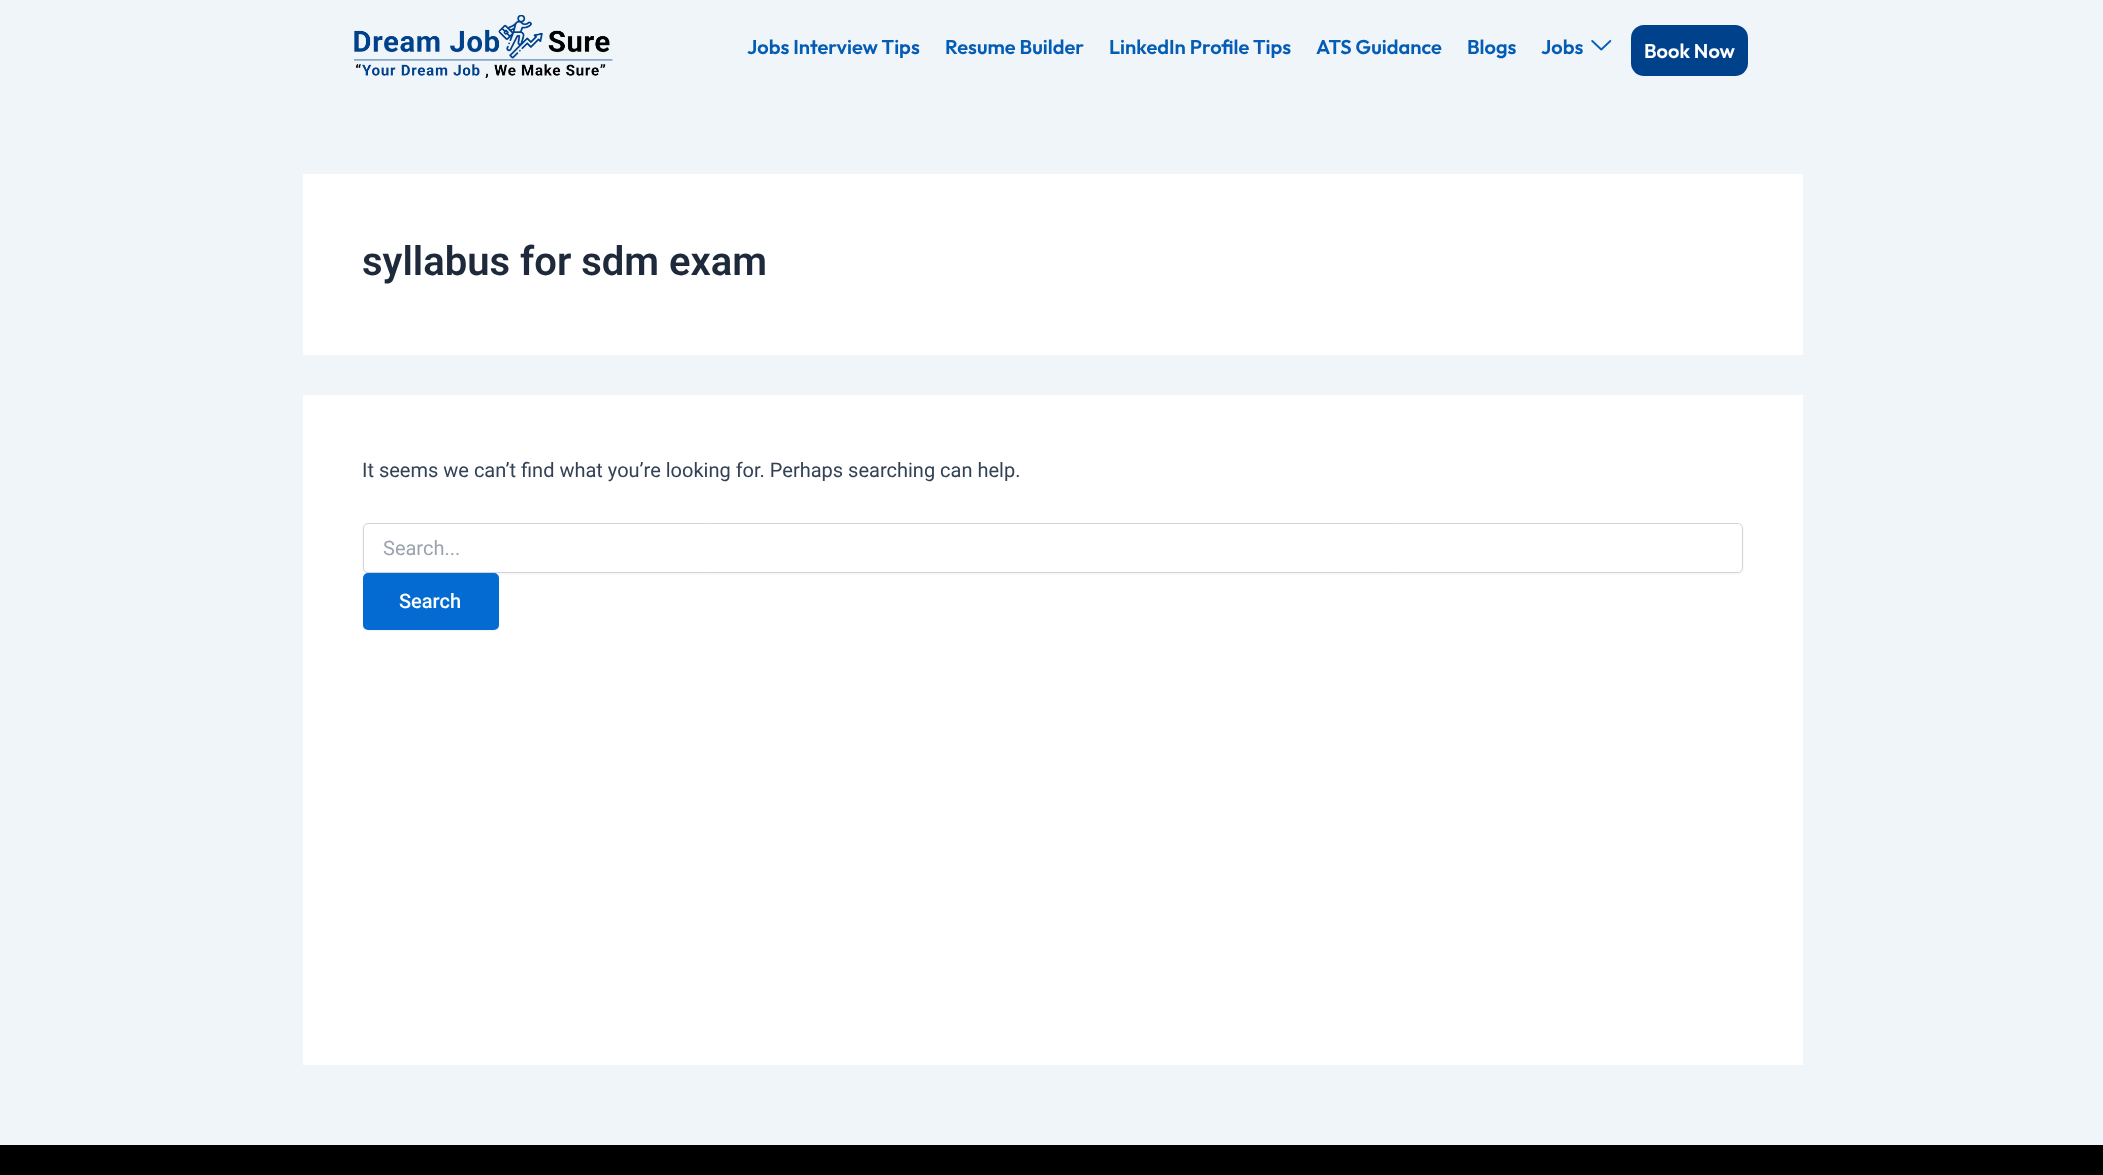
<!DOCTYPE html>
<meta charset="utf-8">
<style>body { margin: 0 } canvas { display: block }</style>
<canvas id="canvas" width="2103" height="1175"></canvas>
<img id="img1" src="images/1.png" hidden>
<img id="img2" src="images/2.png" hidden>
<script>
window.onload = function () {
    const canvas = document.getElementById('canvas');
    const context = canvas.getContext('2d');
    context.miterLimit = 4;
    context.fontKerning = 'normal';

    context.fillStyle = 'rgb(240, 245, 250)';
    context.fillRect(0, 0, 2103, 1175);
    context.drawImage(document.getElementById('img1'), 354, 15, 259, 63);
    context.drawImage(document.getElementById('img2'), 1591, 40, 21, 11);
    context.fillStyle = 'rgb(0, 65, 140)';
    context.beginPath();
    context.roundRect(1631, 25, 117, 51, 13);
    context.fill();
    context.fillStyle = 'rgb(255, 255, 255)';
    context.fillRect(303, 174, 1500, 181);
    context.fillRect(303, 395, 1500, 670);
    context.fillStyle = 'rgba(0, 0, 0, 0.05)';
    context.filter = 'blur(1px)';
    context.beginPath();
    context.roundRect(363, 524, 1380, 50, 5);
    context.fill();
    context.filter = 'none';
    context.fillStyle = 'rgb(255, 255, 255)';
    context.beginPath();
    context.roundRect(363.5, 523.5, 1379, 49, 4.5);
    context.fill();
    context.strokeStyle = 'rgb(209, 213, 219)';
    context.stroke();
    context.fillStyle = 'rgba(0, 0, 0, 0.05)';
    context.filter = 'blur(1px)';
    context.beginPath();
    context.roundRect(363, 574, 136, 57, 5);
    context.fill();
    context.filter = 'none';
    context.fillStyle = 'rgb(4, 107, 210)';
    context.beginPath();
    context.roundRect(363, 573, 136, 57, 5);
    context.fill();
    context.fillStyle = 'rgb(0, 0, 0)';
    context.fillRect(0, 1145, 2103, 30);
    context.font = '600 20px Outfit';
    context.fillStyle = 'rgb(4, 92, 180)';
    context.fillText('Jobs Interview Tips', 747, 54);
    context.fillText('Resume Builder', 945, 54);
    context.fillText('LinkedIn Profile Tips', 1109, 54);
    context.fillText('ATS Guidance', 1316, 54);
    context.fillText('Blogs', 1467, 54);
    context.fillText('Jobs', 1541, 54);
    context.fillStyle = 'rgb(255, 255, 255)';
    context.fillText('Book Now', 1644, 58);
    context.font = '600 40px Roboto';
    context.fillStyle = 'rgb(30, 41, 59)';
    context.fillText('syllabus for sdm exam', 362, 275);
    context.font = '20px Roboto';
    context.fillStyle = 'rgb(51, 65, 85)';
    context.fillText('It seems we can’t find what you’re looking for. Perhaps searching can help.', 362, 477);
    context.fillStyle = 'rgb(156, 163, 175)';
    context.fillText('Search...', 383, 555);
    context.font = '500 20px Roboto';
    context.fillStyle = 'rgb(255, 255, 255)';
    context.fillText('Search', 399, 608);
};
</script>
